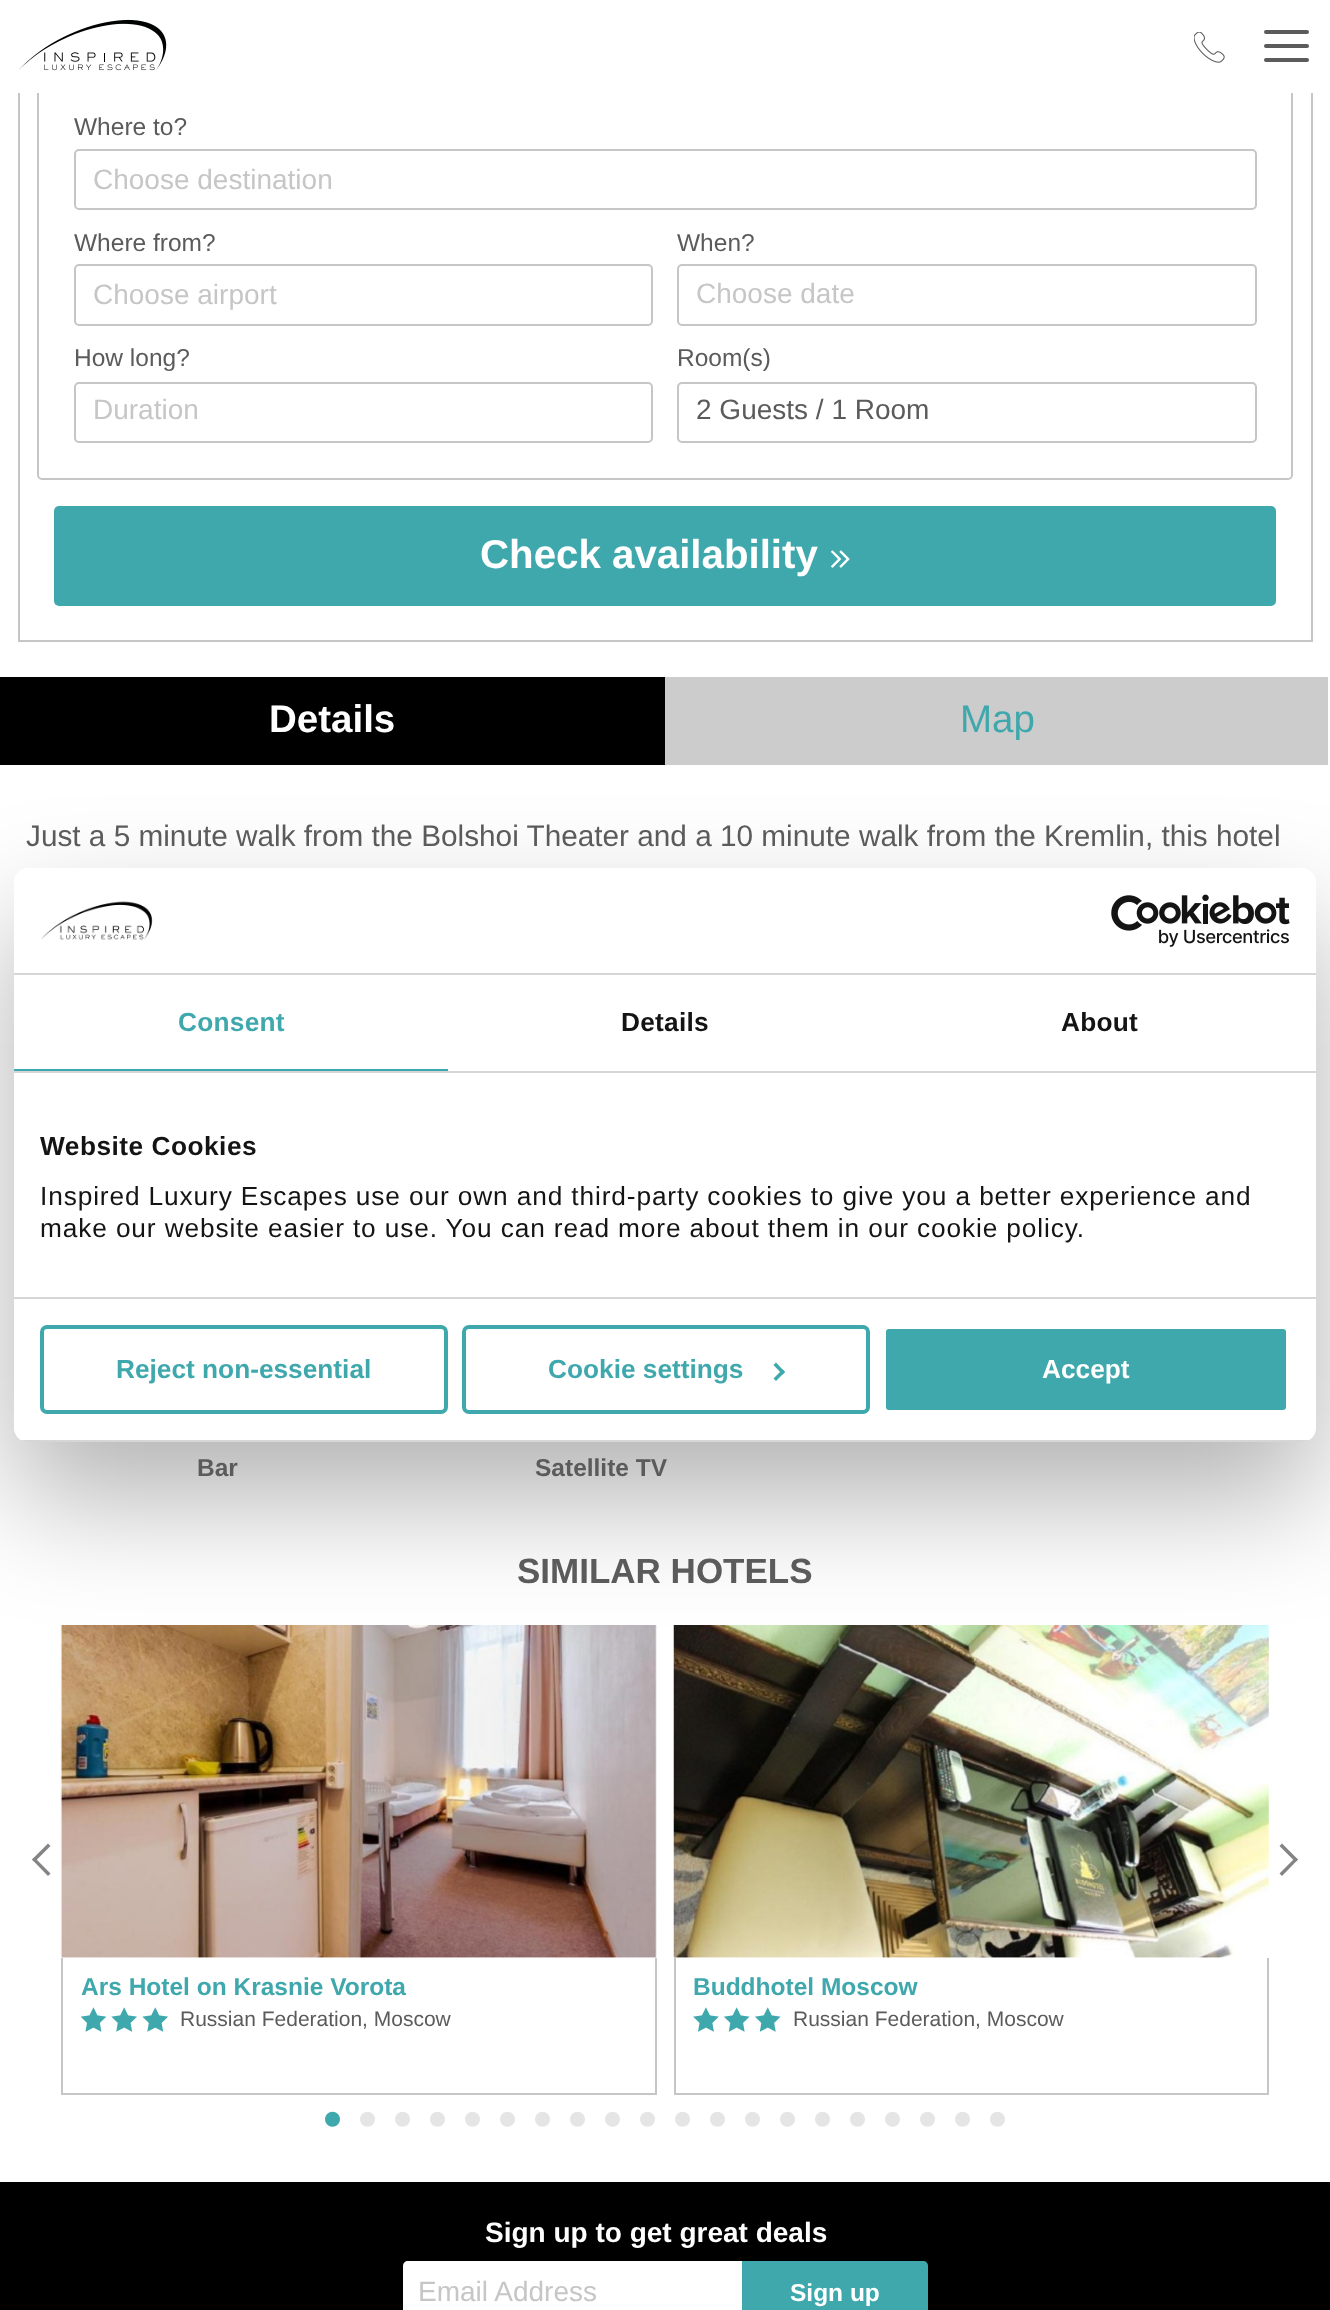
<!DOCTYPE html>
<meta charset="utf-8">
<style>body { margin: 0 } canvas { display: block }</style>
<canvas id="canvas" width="1330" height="2310"></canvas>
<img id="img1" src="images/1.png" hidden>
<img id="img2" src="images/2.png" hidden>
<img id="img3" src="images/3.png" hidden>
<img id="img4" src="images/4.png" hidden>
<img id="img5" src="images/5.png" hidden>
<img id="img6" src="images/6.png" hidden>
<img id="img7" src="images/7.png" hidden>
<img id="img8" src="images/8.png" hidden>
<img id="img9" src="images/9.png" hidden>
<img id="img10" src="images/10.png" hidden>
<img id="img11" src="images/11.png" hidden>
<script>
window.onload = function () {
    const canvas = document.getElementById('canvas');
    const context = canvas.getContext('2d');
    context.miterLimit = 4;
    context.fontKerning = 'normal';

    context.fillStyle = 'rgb(255, 255, 255)';
    context.fillRect(0, 0, 1330, 2310);
    context.strokeStyle = 'rgb(198, 198, 198)';
    context.lineWidth = 2;
    context.strokeRect(19, -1, 1293, 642);
    context.beginPath();
    context.roundRect(38, 85, 1254, 394, [0, 4, 4, 4]);
    context.stroke();
    context.fillRect(18, 0, 1295, 93);
    context.drawImage(document.getElementById('img1'), 19, 19, 148, 52);
    context.drawImage(document.getElementById('img2'), 1194, 32, 31, 31);
    context.fillStyle = 'rgb(91, 91, 91)';
    context.beginPath();
    context.roundRect(1264, 44, 45, 4, 2);
    context.fill();
    context.beginPath();
    context.roundRect(1264, 30, 45, 4, 2);
    context.fill();
    context.beginPath();
    context.roundRect(1264, 58, 45, 4, 2);
    context.fill();
    context.beginPath();
    context.roundRect(75, 150, 1181, 59, 4);
    context.stroke();
    context.beginPath();
    context.roundRect(75, 265, 577, 60, 4);
    context.stroke();
    context.beginPath();
    context.roundRect(678, 265, 578, 60, 4);
    context.stroke();
    context.beginPath();
    context.roundRect(75, 383, 577, 59, 4);
    context.stroke();
    context.beginPath();
    context.roundRect(678, 383, 578, 59, 4);
    context.stroke();
    context.fillStyle = 'rgb(63, 168, 173)';
    context.beginPath();
    context.roundRect(54, 506, 1222, 100, 5);
    context.fill();
    context.drawImage(document.getElementById('img3'), 831, 550, 19, 18);
    context.fillStyle = 'rgb(0, 0, 0)';
    context.fillRect(0, 677, 665, 88);
    context.fillStyle = 'rgb(204, 204, 204)';
    context.fillRect(665, 677, 663, 88);
    context.fillStyle = 'rgb(132, 132, 132)';
    context.beginPath();
    context.moveTo(48, 1876);
    context.lineTo(32, 1859.5);
    context.lineTo(34.5, 1857.5);
    context.lineTo(50.5, 1873.5);
    context.closePath();
    context.fill();
    context.beginPath();
    context.moveTo(34.5, 1862);
    context.lineTo(32, 1859.5);
    context.lineTo(48, 1843.5);
    context.lineTo(50.5, 1846);
    context.closePath();
    context.fill();
    context.beginPath();
    context.moveTo(1282, 1843.5);
    context.lineTo(1298, 1859.5);
    context.lineTo(1295.5, 1862);
    context.lineTo(1279.5, 1846);
    context.closePath();
    context.fill();
    context.beginPath();
    context.moveTo(1295.5, 1857.5);
    context.lineTo(1298, 1859.5);
    context.lineTo(1282, 1876);
    context.lineTo(1279.5, 1873.5);
    context.closePath();
    context.fill();
    context.drawImage(document.getElementById('img4'), 60, 1625, 597, 333);
    context.fillStyle = 'rgb(198, 198, 198)';
    context.fillRect(655, 1958, 2, 137);
    context.fillRect(61, 2093, 595, 2);
    context.fillRect(61, 1958, 2, 137);
    context.drawImage(document.getElementById('img5'), 81, 2007, 87, 25);
    context.drawImage(document.getElementById('img6'), 673, 1625, 596, 333);
    context.fillRect(1267, 1958, 2, 137);
    context.fillRect(674, 2093, 595, 2);
    context.fillRect(674, 1958, 2, 137);
    context.drawImage(document.getElementById('img7'), 693, 2007, 88, 25);
    context.drawImage(document.getElementById('img8'), 325, 2111, 15, 16);
    context.drawImage(document.getElementById('img9'), 360, 2111, 15, 16);
    context.drawImage(document.getElementById('img9'), 395, 2111, 15, 16);
    context.drawImage(document.getElementById('img9'), 430, 2111, 15, 16);
    context.drawImage(document.getElementById('img9'), 465, 2111, 15, 16);
    context.drawImage(document.getElementById('img9'), 500, 2111, 15, 16);
    context.drawImage(document.getElementById('img9'), 535, 2111, 15, 16);
    context.drawImage(document.getElementById('img9'), 570, 2111, 15, 16);
    context.drawImage(document.getElementById('img9'), 605, 2111, 15, 16);
    context.drawImage(document.getElementById('img9'), 640, 2111, 15, 16);
    context.drawImage(document.getElementById('img9'), 675, 2111, 15, 16);
    context.drawImage(document.getElementById('img9'), 710, 2111, 15, 16);
    context.drawImage(document.getElementById('img9'), 745, 2111, 15, 16);
    context.drawImage(document.getElementById('img9'), 780, 2111, 15, 16);
    context.drawImage(document.getElementById('img9'), 815, 2111, 15, 16);
    context.drawImage(document.getElementById('img9'), 850, 2111, 15, 16);
    context.drawImage(document.getElementById('img9'), 885, 2111, 15, 16);
    context.drawImage(document.getElementById('img9'), 920, 2111, 15, 16);
    context.drawImage(document.getElementById('img9'), 955, 2111, 15, 16);
    context.drawImage(document.getElementById('img9'), 990, 2111, 15, 16);
    context.fillStyle = 'rgb(0, 0, 0)';
    context.fillRect(0, 2182, 1330, 128);
    context.fillStyle = 'rgb(255, 255, 255)';
    context.beginPath();
    context.moveTo(408, 2261);
    context.lineTo(742, 2261);
    context.lineTo(742, 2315);
    context.lineTo(408, 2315);
    context.bezierCurveTo(405, 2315, 403, 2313, 403, 2310);
    context.lineTo(403, 2266);
    context.bezierCurveTo(403, 2263, 405, 2261, 408, 2261);
    context.closePath();
    context.fill();
    context.fillStyle = 'rgb(63, 168, 173)';
    context.beginPath();
    context.moveTo(742, 2261);
    context.lineTo(923, 2261);
    context.bezierCurveTo(926, 2261, 928, 2263, 928, 2266);
    context.lineTo(928, 2310);
    context.bezierCurveTo(928, 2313, 926, 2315, 923, 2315);
    context.lineTo(742, 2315);
    context.closePath();
    context.fill();
    context.fillStyle = 'rgba(0, 0, 0, 0.3)';
    context.filter = 'blur(59.5px)';
    context.beginPath();
    context.roundRect(14, 924, 1302, 574, 14);
    context.fill();
    context.filter = 'none';
    context.fillStyle = 'rgb(255, 255, 255)';
    context.beginPath();
    context.roundRect(14, 868, 1302, 574, 14);
    context.fill();
    context.fillStyle = 'rgb(214, 214, 214)';
    context.fillRect(14, 973, 1302, 2);
    context.drawImage(document.getElementById('img10'), 41, 901, 112, 39);
    context.drawImage(document.getElementById('img11'), 1111, 894, 179, 53);
    context.fillRect(14, 1071, 1302, 2);
    context.fillStyle = 'rgb(63, 168, 173)';
    context.fillRect(14, 1069, 434, 2);
    context.fillStyle = 'rgb(214, 214, 214)';
    context.fillRect(14, 1297, 1302, 2);
    context.save();
    context.beginPath();
    context.roundRect(14, 868, 1302, 574, 14);
    context.clip();
    context.fillRect(14, 1440, 1302, 2);
    context.restore();
    context.beginPath();
    context.roundRect(42, 1327, 404, 85, 5);
    context.strokeStyle = 'rgb(63, 168, 173)';
    context.lineWidth = 4;
    context.stroke();
    context.beginPath();
    context.roundRect(464, 1327, 404, 85, 5);
    context.stroke();
    context.fillStyle = 'rgb(63, 168, 173)';
    context.beginPath();
    context.moveTo(776, 1362.5);
    context.lineTo(785, 1372);
    context.lineTo(782.5, 1374.5);
    context.lineTo(773.5, 1365);
    context.closePath();
    context.fill();
    context.beginPath();
    context.moveTo(782.5, 1369.5);
    context.lineTo(785, 1372);
    context.lineTo(776, 1381);
    context.lineTo(773.5, 1378.5);
    context.closePath();
    context.fill();
    context.beginPath();
    context.roundRect(884, 1327, 404, 85, 5);
    context.fill();
    context.strokeStyle = 'rgb(255, 255, 255)';
    context.stroke();
    context.font = '24.5px Liberation Sans';
    context.fillStyle = 'rgb(91, 91, 91)';
    context.fillText('Where to?', 74, 135);
    context.font = '28px Liberation Sans';
    context.fillStyle = 'rgb(198, 198, 198)';
    context.fillText('Choose destination', 93, 189);
    context.font = '24.5px Liberation Sans';
    context.fillStyle = 'rgb(91, 91, 91)';
    context.fillText('Where from?', 74, 251);
    context.font = '28px Liberation Sans';
    context.fillStyle = 'rgb(198, 198, 198)';
    context.fillText('Choose airport', 93, 304);
    context.font = '24.5px Liberation Sans';
    context.fillStyle = 'rgb(91, 91, 91)';
    context.fillText('When?', 677, 251);
    context.font = '28px Liberation Sans';
    context.fillStyle = 'rgb(198, 198, 198)';
    context.fillText('Choose date', 696, 303);
    context.font = '24.5px Liberation Sans';
    context.fillStyle = 'rgb(91, 91, 91)';
    context.fillText('How long?', 74, 366);
    context.font = '28px Liberation Sans';
    context.fillStyle = 'rgb(198, 198, 198)';
    context.fillText('Duration', 93, 419);
    context.font = '24.5px Liberation Sans';
    context.fillStyle = 'rgb(91, 91, 91)';
    context.fillText('Room(s)', 677, 366);
    context.font = '28px Liberation Sans';
    context.fillText('2 Guests / 1 Room', 696, 419);
    context.font = 'bold 40.25px Liberation Sans';
    context.fillStyle = 'rgb(255, 255, 255)';
    context.fillText('Check availability', 480, 568);
    context.font = 'bold 38.5px Liberation Sans';
    context.fillText('Details', 269, 732);
    context.font = '38.5px Liberation Sans';
    context.fillStyle = 'rgb(63, 168, 173)';
    context.fillText('Map', 960, 732);
    context.font = '29.75px Liberation Sans';
    context.fillStyle = 'rgb(91, 91, 91)';
    context.fillText('Just a 5 minute walk from the Bolshoi Theater and a 10 minute walk from the Kremlin, this hotel', 26, 846);
    context.font = 'bold 24.5px Liberation Sans';
    context.fillText('Bar', 197, 1476);
    context.fillText('Satellite TV', 535, 1476);
    context.font = 'bold 35px Liberation Sans';
    context.fillText('SIMILAR HOTELS', 517, 1583);
    context.font = 'bold 24.5px Liberation Sans';
    context.fillStyle = 'rgb(63, 168, 173)';
    context.fillText('Ars Hotel on Krasnie Vorota', 81, 1995);
    context.font = '21px Liberation Sans';
    context.fillStyle = 'rgb(91, 91, 91)';
    context.fillText('Russian Federation, Moscow', 180, 2026);
    context.font = 'bold 24.5px Liberation Sans';
    context.fillStyle = 'rgb(63, 168, 173)';
    context.fillText('Buddhotel Moscow', 693, 1995);
    context.font = '21px Liberation Sans';
    context.fillStyle = 'rgb(91, 91, 91)';
    context.fillText('Russian Federation, Moscow', 793, 2026);
    context.font = 'bold 28px Liberation Sans';
    context.fillStyle = 'rgb(255, 255, 255)';
    context.fillText('Sign up to get great deals', 485, 2242);
    context.font = '28px Liberation Sans';
    context.fillStyle = 'rgb(198, 198, 198)';
    context.fillText('Email Address', 418, 2301);
    context.font = 'bold 24.5px Liberation Sans';
    context.fillStyle = 'rgb(255, 255, 255)';
    context.fillText('Sign up', 790, 2301);
    context.letterSpacing = '0.25px';
    context.font = 'bold 26.25px Liberation Sans';
    context.fillStyle = 'rgb(63, 168, 173)';
    context.fillText('Consent', 178, 1031);
    context.fillStyle = 'rgb(20, 20, 20)';
    context.fillText('Details', 621, 1031);
    context.fillText('About', 1061, 1031);
    context.letterSpacing = '0.5px';
    context.fillText('Website Cookies', 40, 1155);
    context.letterSpacing = '0.88px';
    context.font = '26.25px Liberation Sans';
    context.fillText('Inspired Luxury Escapes use our own and third-party cookies to give you a better experience and', 40, 1205);
    context.fillText('make our website easier to use. You can read more about them in our cookie policy.', 40, 1237);
    context.letterSpacing = '0px';
    context.font = 'bold 26.25px Liberation Sans';
    context.fillStyle = 'rgb(63, 168, 173)';
    context.fillText('Reject non-essential', 116, 1378);
    context.fillText('Cookie settings', 548, 1378);
    context.fillStyle = 'rgb(255, 255, 255)';
    context.fillText('Accept', 1042, 1378);
};
</script>
